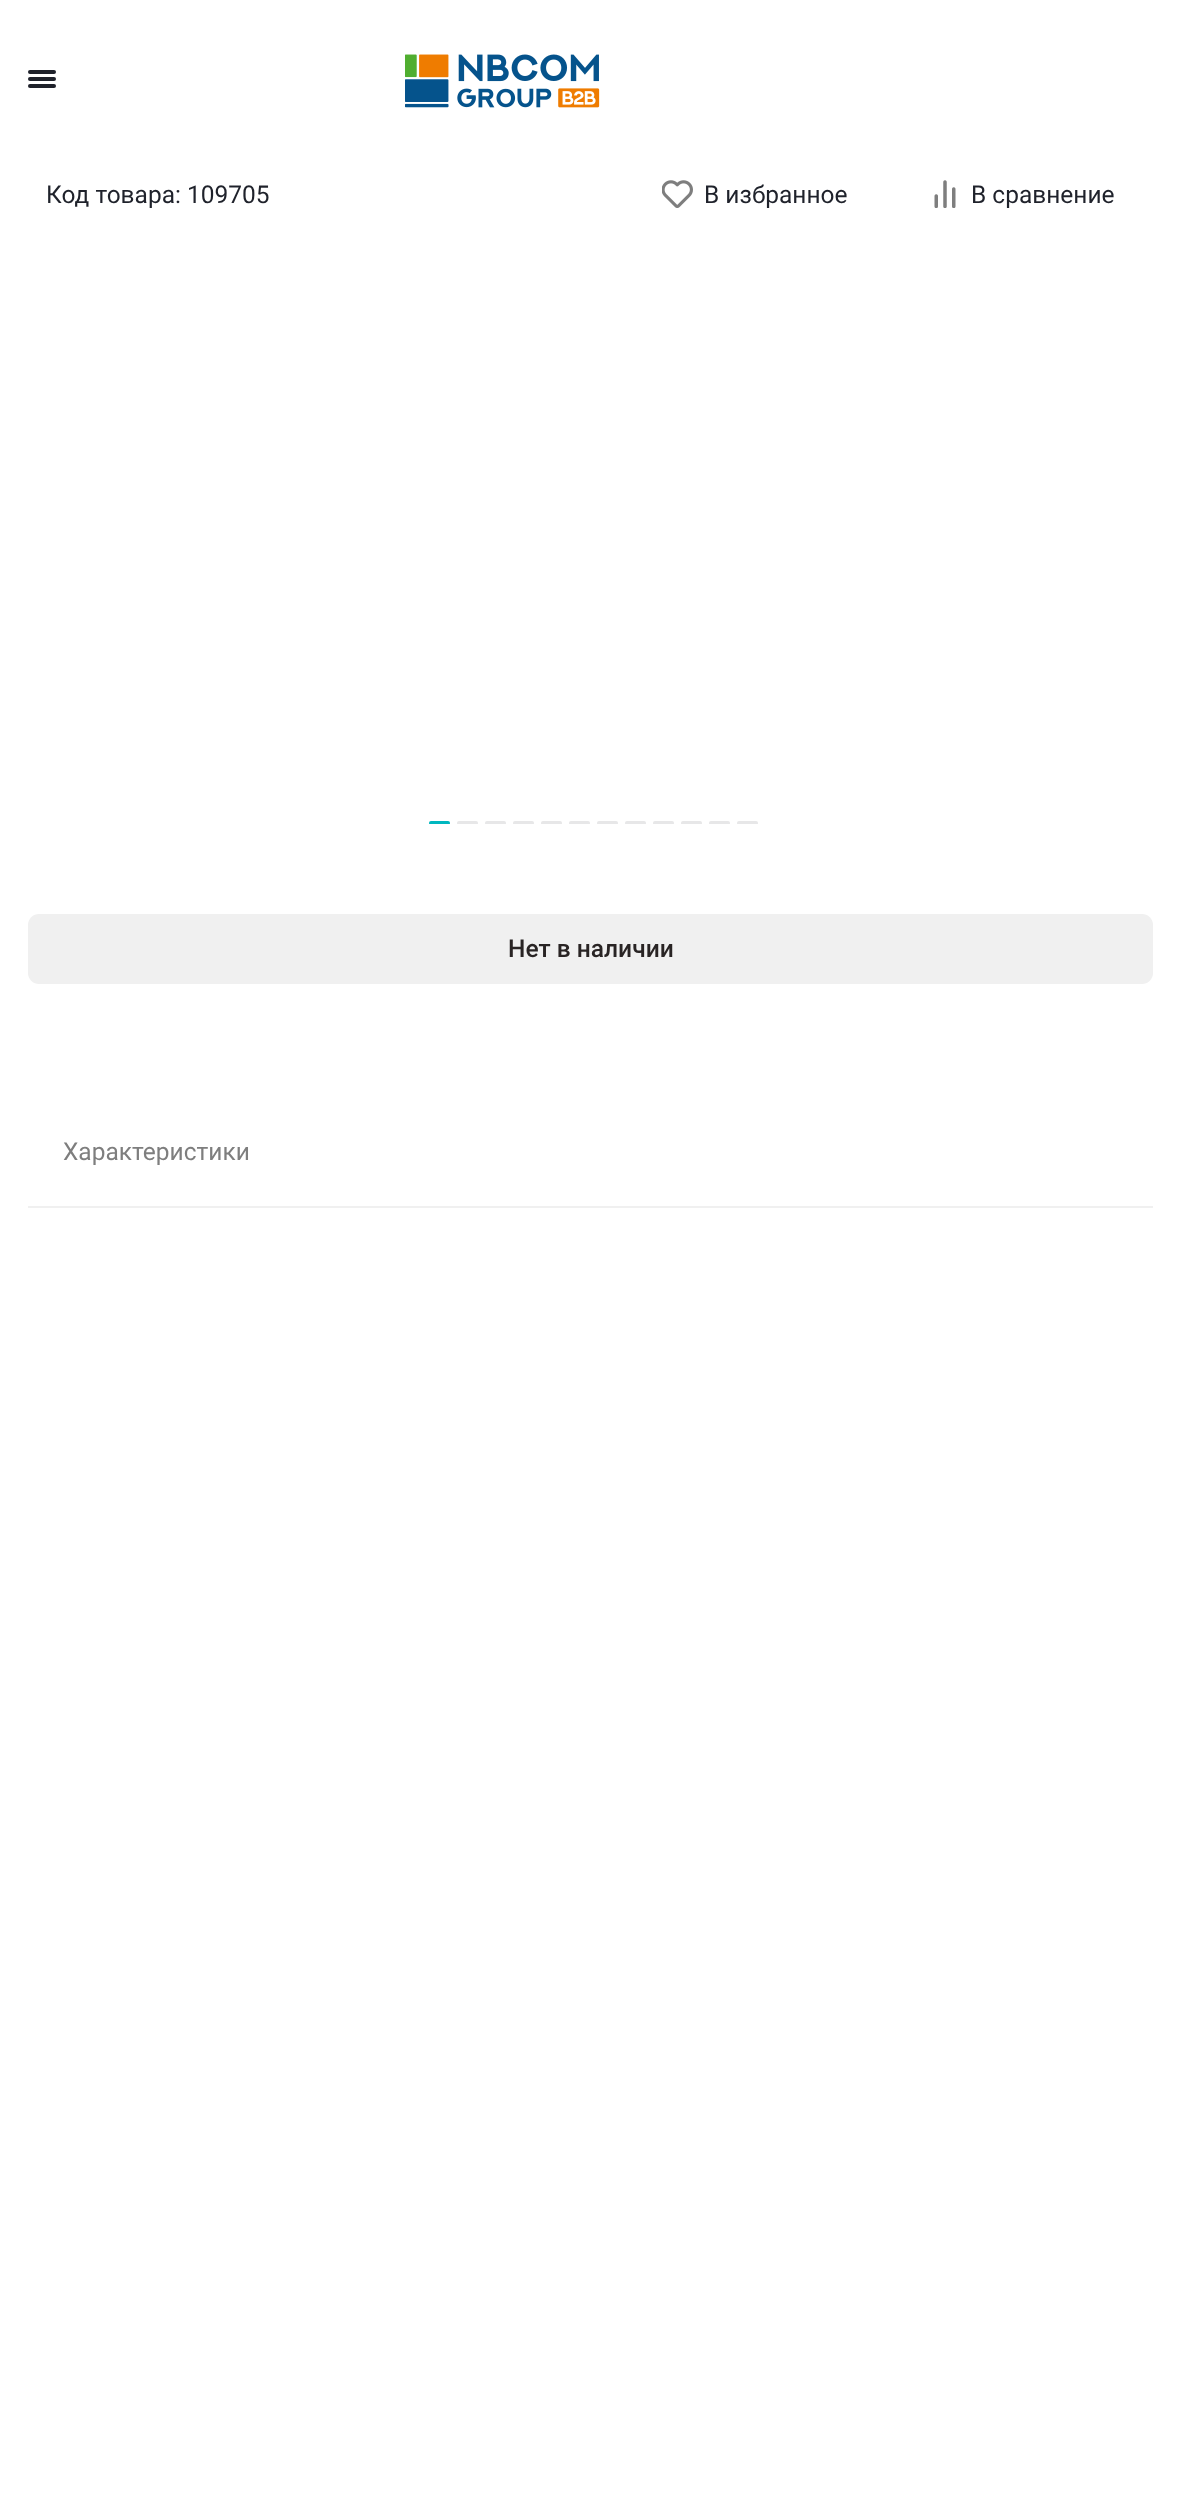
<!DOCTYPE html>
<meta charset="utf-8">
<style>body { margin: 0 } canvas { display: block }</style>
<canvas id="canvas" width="1180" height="2495"></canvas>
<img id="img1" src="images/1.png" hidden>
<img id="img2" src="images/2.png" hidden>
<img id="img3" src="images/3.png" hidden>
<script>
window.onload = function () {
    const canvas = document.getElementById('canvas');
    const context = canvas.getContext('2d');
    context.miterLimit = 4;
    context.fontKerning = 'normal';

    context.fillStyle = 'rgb(255, 255, 255)';
    context.fillRect(0, 0, 1180, 2495);
    context.fillStyle = 'rgb(31, 34, 43)';
    context.beginPath();
    context.roundRect(28, 77, 28, 4, 2);
    context.fill();
    context.beginPath();
    context.roundRect(28, 70, 28, 4, 2);
    context.fill();
    context.beginPath();
    context.roundRect(28, 84, 28, 4, 2);
    context.fill();
    context.drawImage(document.getElementById('img1'), 405, 54, 195, 54);
    context.drawImage(document.getElementById('img2'), 662, 180, 31, 28);
    context.drawImage(document.getElementById('img3'), 934, 180, 22, 28);
    context.save();
    context.beginPath();
    context.rect(32, 252, 1121, 572);
    context.clip();
    context.fillStyle = 'rgb(0, 183, 191)';
    context.beginPath();
    context.roundRect(429, 821, 21, 4, 2);
    context.fill();
    context.fillStyle = 'rgb(231, 231, 232)';
    context.beginPath();
    context.roundRect(457, 821, 21, 4, 2);
    context.fill();
    context.beginPath();
    context.roundRect(485, 821, 21, 4, 2);
    context.fill();
    context.beginPath();
    context.roundRect(513, 821, 21, 4, 2);
    context.fill();
    context.beginPath();
    context.roundRect(541, 821, 21, 4, 2);
    context.fill();
    context.beginPath();
    context.roundRect(569, 821, 21, 4, 2);
    context.fill();
    context.beginPath();
    context.roundRect(597, 821, 21, 4, 2);
    context.fill();
    context.beginPath();
    context.roundRect(625, 821, 21, 4, 2);
    context.fill();
    context.beginPath();
    context.roundRect(653, 821, 21, 4, 2);
    context.fill();
    context.beginPath();
    context.roundRect(681, 821, 21, 4, 2);
    context.fill();
    context.beginPath();
    context.roundRect(709, 821, 21, 4, 2);
    context.fill();
    context.beginPath();
    context.roundRect(737, 821, 21, 4, 2);
    context.fill();
    context.restore();
    context.fillStyle = 'rgb(240, 240, 240)';
    context.beginPath();
    context.roundRect(28, 914, 1125, 70, 11);
    context.fill();
    context.fillRect(28, 1206, 1125, 2);
    context.font = '24.5px Roboto';
    context.fillStyle = 'rgb(31, 34, 43)';
    context.fillText('Код товара: 109705', 46, 203);
    context.fillText('В избранное', 704, 203);
    context.fillText('В сравнение', 971, 203);
    context.font = '500 24.5px Roboto';
    context.fillStyle = 'rgb(41, 36, 36)';
    context.fillText('Нет в наличии', 508, 957);
    context.font = '24.5px Roboto';
    context.fillStyle = 'rgb(126, 126, 126)';
    context.fillText('Характеристики', 63, 1160);
};
</script>
